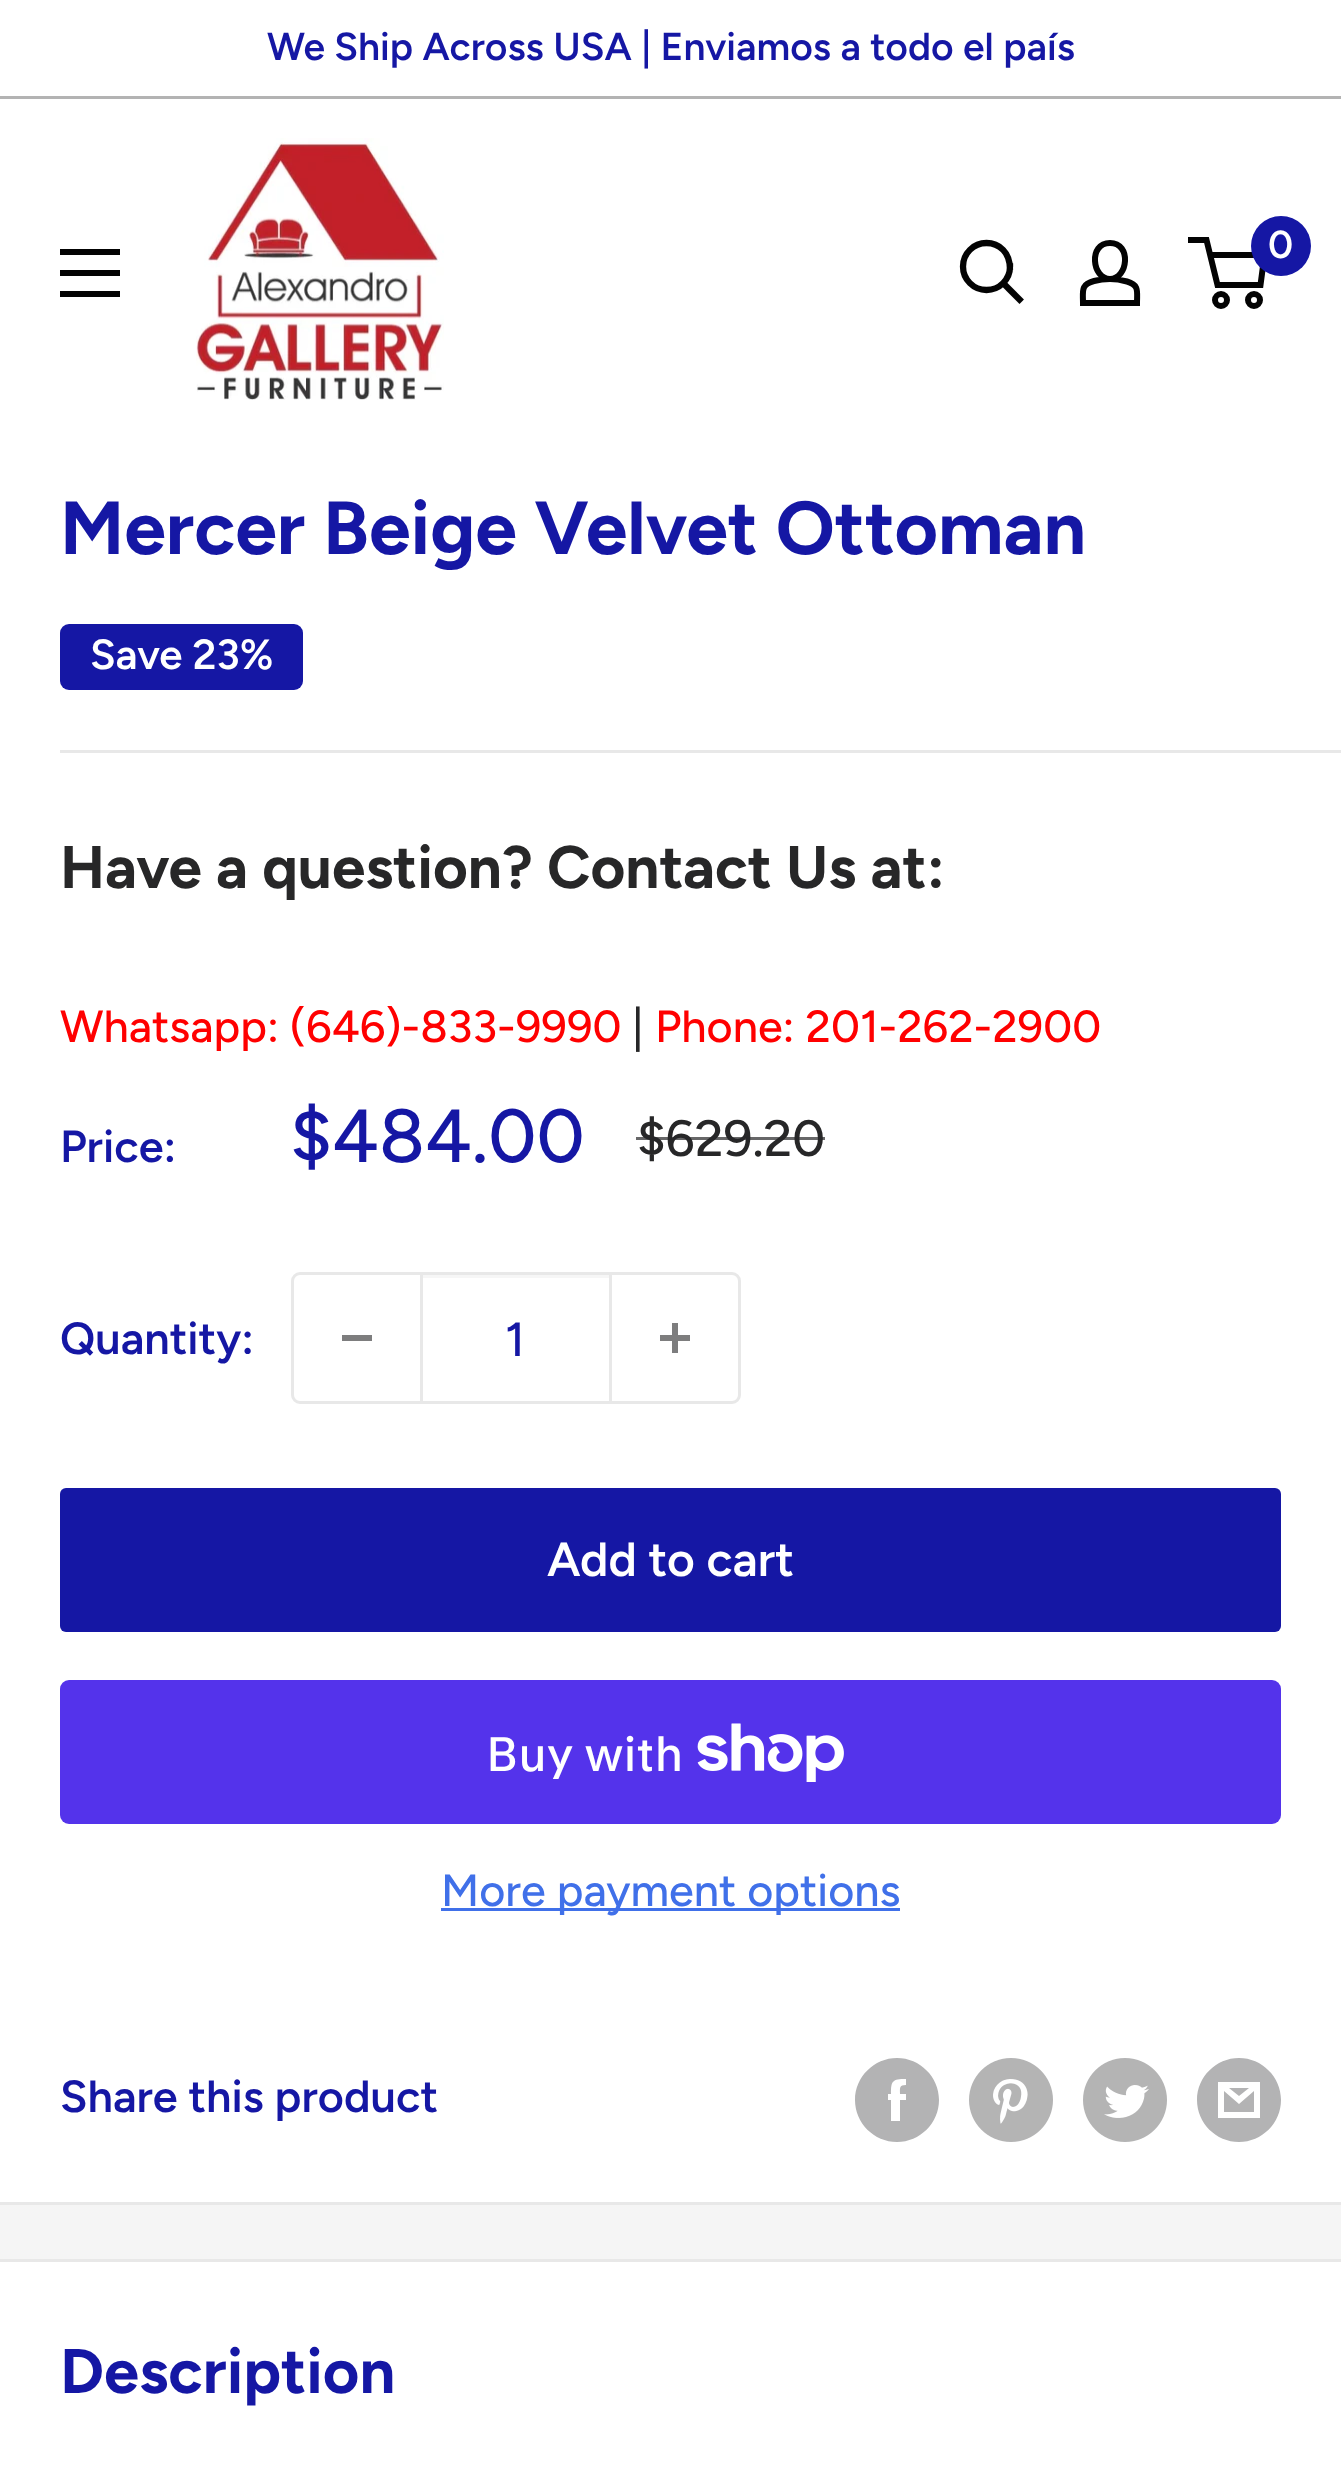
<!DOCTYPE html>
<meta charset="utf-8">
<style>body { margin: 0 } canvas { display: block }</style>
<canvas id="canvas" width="1341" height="2485"></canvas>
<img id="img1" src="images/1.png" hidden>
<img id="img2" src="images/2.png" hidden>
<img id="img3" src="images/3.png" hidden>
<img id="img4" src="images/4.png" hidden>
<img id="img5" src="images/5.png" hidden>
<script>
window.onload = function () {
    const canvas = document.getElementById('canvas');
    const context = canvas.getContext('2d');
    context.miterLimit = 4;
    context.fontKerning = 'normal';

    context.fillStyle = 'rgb(245, 245, 245)';
    context.fillRect(0, 0, 1341, 2485);
    context.fillStyle = 'rgb(255, 255, 255)';
    context.fillRect(0, 0, 1341, 96);
    context.fillStyle = 'rgb(179, 179, 179)';
    context.fillRect(0, 96, 1341, 3);
    context.fillStyle = 'rgb(255, 255, 255)';
    context.fillRect(0, 99, 1341, 2103);
    context.drawImage(document.getElementById('img1'), 196, 138, 248, 262);
    context.beginPath();
    context.moveTo(1019.5, 299.5);
    context.lineTo(1004, 284);
    context.strokeStyle = 'rgb(3, 3, 3)';
    context.lineWidth = 6.3;
    context.lineCap = 'square';
    context.stroke();
    context.beginPath();
    context.arc(986.5, 266.5, 23.5, 0, 2 * Math.PI);
    context.stroke();
    context.beginPath();
    context.moveTo(1110, 279);
    context.bezierCurveTo(1115.5, 279, 1121.5, 280, 1127, 281.5);
    context.bezierCurveTo(1139.5, 285, 1137, 291.5, 1137, 303);
    context.lineTo(1083, 303);
    context.bezierCurveTo(1083, 291, 1080.5, 284.5, 1094, 281);
    context.bezierCurveTo(1099.5, 279.5, 1104.5, 279, 1110, 279);
    context.closePath();
    context.moveTo(1110, 279);
    context.bezierCurveTo(1092, 279, 1088, 243, 1110, 243);
    context.bezierCurveTo(1132, 243, 1128, 279, 1110, 279);
    context.closePath();
    context.lineWidth = 6;
    context.lineCap = 'butt';
    context.stroke();
    context.beginPath();
    context.arc(1221, 300, 6, 0, 2 * Math.PI);
    context.stroke();
    context.beginPath();
    context.arc(1254, 300, 6, 0, 2 * Math.PI);
    context.stroke();
    context.beginPath();
    context.moveTo(1210, 255);
    context.lineTo(1264.5, 255);
    context.lineTo(1260.5, 285);
    context.lineTo(1217.5, 285);
    context.lineTo(1206.5, 240);
    context.lineTo(1188, 240);
    context.stroke();
    context.fillStyle = 'rgb(21, 23, 164)';
    context.beginPath();
    context.arc(1281, 246, 30, 0, 2 * Math.PI);
    context.fill();
    context.fillStyle = 'rgb(3, 3, 3)';
    context.beginPath();
    context.moveTo(60, 291);
    context.lineTo(120, 291);
    context.lineTo(120, 297);
    context.lineTo(60, 297);
    context.closePath();
    context.moveTo(60, 249);
    context.lineTo(120, 249);
    context.lineTo(120, 255);
    context.lineTo(60, 255);
    context.closePath();
    context.moveTo(60, 270);
    context.lineTo(120, 270);
    context.lineTo(120, 276);
    context.lineTo(60, 276);
    context.closePath();
    context.fill('evenodd');
    context.fillStyle = 'rgb(232, 232, 232)';
    context.fillRect(0, 2202, 1341, 3);
    context.fillStyle = 'rgb(21, 23, 164)';
    context.beginPath();
    context.roundRect(60, 624, 243, 66, 9);
    context.fill();
    context.fillStyle = 'rgb(232, 232, 232)';
    context.fillRect(60, 750, 1281, 3);
    context.beginPath();
    context.roundRect(292.5, 1273.5, 447, 129, 7.5);
    context.strokeStyle = 'rgb(232, 232, 232)';
    context.lineWidth = 3;
    context.stroke();
    context.fillStyle = 'rgb(125, 125, 126)';
    context.fillRect(342, 1335, 30, 6);
    context.fillStyle = 'rgb(246, 246, 246)';
    context.fillRect(423, 1275, 186, 3);
    context.fillStyle = 'rgb(232, 232, 232)';
    context.fillRect(609, 1275, 3, 126);
    context.fillRect(420, 1275, 3, 126);
    context.drawImage(document.getElementById('img2'), 660, 1323, 30, 30);
    context.fillStyle = 'rgb(21, 23, 164)';
    context.beginPath();
    context.roundRect(60, 1488, 1221, 144, 6);
    context.fill();
    context.fillStyle = 'rgb(84, 51, 235)';
    context.beginPath();
    context.roundRect(60, 1680, 1221, 144, 9);
    context.fill();
    context.drawImage(document.getElementById('img3'), 697, 1723, 147, 59);
    context.fillStyle = 'rgb(64, 112, 233)';
    context.fillRect(441, 1908, 459, 3);
    context.fillStyle = 'rgb(179, 179, 180)';
    context.beginPath();
    context.moveTo(897, 2142);
    context.bezierCurveTo(874, 2142, 855, 2123, 855, 2100);
    context.bezierCurveTo(855, 2077, 874, 2058, 897, 2058);
    context.bezierCurveTo(920, 2058, 939, 2077, 939, 2100);
    context.bezierCurveTo(939, 2123, 920, 2142, 897, 2142);
    context.closePath();
    context.moveTo(906, 2094);
    context.lineTo(900, 2094);
    context.bezierCurveTo(900, 2088, 899, 2085, 906, 2085);
    context.lineTo(906, 2079);
    context.bezierCurveTo(892, 2079, 891, 2081, 891, 2094);
    context.lineTo(888, 2094);
    context.lineTo(888, 2100);
    context.lineTo(891, 2100);
    context.lineTo(891, 2121);
    context.lineTo(900, 2121);
    context.lineTo(900, 2100);
    context.lineTo(906, 2100);
    context.closePath();
    context.fill('evenodd');
    context.drawImage(document.getElementById('img4'), 969, 2058, 84, 84);
    context.drawImage(document.getElementById('img5'), 1083, 2058, 84, 84);
    context.beginPath();
    context.moveTo(1239, 2142);
    context.bezierCurveTo(1216, 2142, 1197, 2123, 1197, 2100);
    context.bezierCurveTo(1197, 2077, 1216, 2058, 1239, 2058);
    context.bezierCurveTo(1262, 2058, 1281, 2077, 1281, 2100);
    context.bezierCurveTo(1281, 2123, 1262, 2142, 1239, 2142);
    context.closePath();
    context.moveTo(1229, 2088);
    context.lineTo(1249, 2088);
    context.lineTo(1239, 2096);
    context.closePath();
    context.moveTo(1254, 2091);
    context.lineTo(1254, 2112);
    context.lineTo(1224, 2112);
    context.lineTo(1224, 2091);
    context.lineTo(1239, 2104);
    context.closePath();
    context.moveTo(1260, 2082);
    context.lineTo(1218, 2082);
    context.lineTo(1218, 2118);
    context.lineTo(1260, 2118);
    context.closePath();
    context.fill();
    context.fillStyle = 'rgb(255, 255, 255)';
    context.fillRect(0, 2262, 1341, 223);
    context.fillStyle = 'rgb(232, 232, 232)';
    context.fillRect(0, 2259, 1341, 3);
    context.font = '600 39px Figtree';
    context.fillStyle = 'rgb(21, 23, 164)';
    context.fillText('We Ship Across USA | Enviamos a todo el país', 267, 60);
    context.fillStyle = 'rgb(255, 255, 255)';
    context.fillText('0', 1268, 258);
    context.font = 'bold 75px Figtree';
    context.fillStyle = 'rgb(21, 23, 164)';
    context.fillText('Mercer Beige Velvet Ottoman', 60, 554);
    context.font = '600 42px Figtree';
    context.fillStyle = 'rgb(255, 255, 255)';
    context.fillText('Save 23%', 90, 669);
    context.font = 'bold 60px Figtree';
    context.fillStyle = 'rgb(39, 39, 40)';
    context.fillText('Have a question? Contact Us at:', 60, 888);
    context.font = '500 45px Figtree';
    context.fillStyle = 'rgb(255, 0, 0)';
    context.fillText('Whatsapp: (646)-833-9990', 60, 1042);
    context.fillStyle = 'rgb(39, 39, 40)';
    context.fillText('|', 632, 1042);
    context.fillStyle = 'rgb(255, 0, 0)';
    context.fillText('Phone: 201-262-2900', 655, 1042);
    context.font = '600 45px Figtree';
    context.fillStyle = 'rgb(21, 23, 164)';
    context.fillText('Price:', 60, 1162);
    context.font = '500 75px Figtree';
    context.fillText('$484.00', 290, 1162);
    context.font = '500 51px Figtree';
    context.fillStyle = 'rgb(39, 39, 40)';
    context.fillText('$629.20', 637, 1156);
    context.fillStyle = 'rgba(39, 39, 40, 0.7)';
    context.fillRect(636, 1137, 189, 3);
    context.font = '600 45px Figtree';
    context.fillStyle = 'rgb(21, 23, 164)';
    context.fillText('Quantity:', 60, 1354);
    context.font = '500 48px Figtree';
    context.fillText('1', 505, 1356);
    context.font = '600 48px Figtree';
    context.fillStyle = 'rgb(255, 255, 255)';
    context.fillText('Add to cart', 547, 1576);
    context.font = '500 48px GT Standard';
    context.fillText('Buy with', 486, 1771);
    context.font = '500 45px Figtree';
    context.fillStyle = 'rgb(64, 112, 233)';
    context.fillText('More payment options', 441, 1906);
    context.font = '600 45px Figtree';
    context.fillStyle = 'rgb(21, 23, 164)';
    context.fillText('Share this product', 60, 2112);
    context.font = 'bold 63px Figtree';
    context.fillText('Description', 60, 2393);
};
</script>
